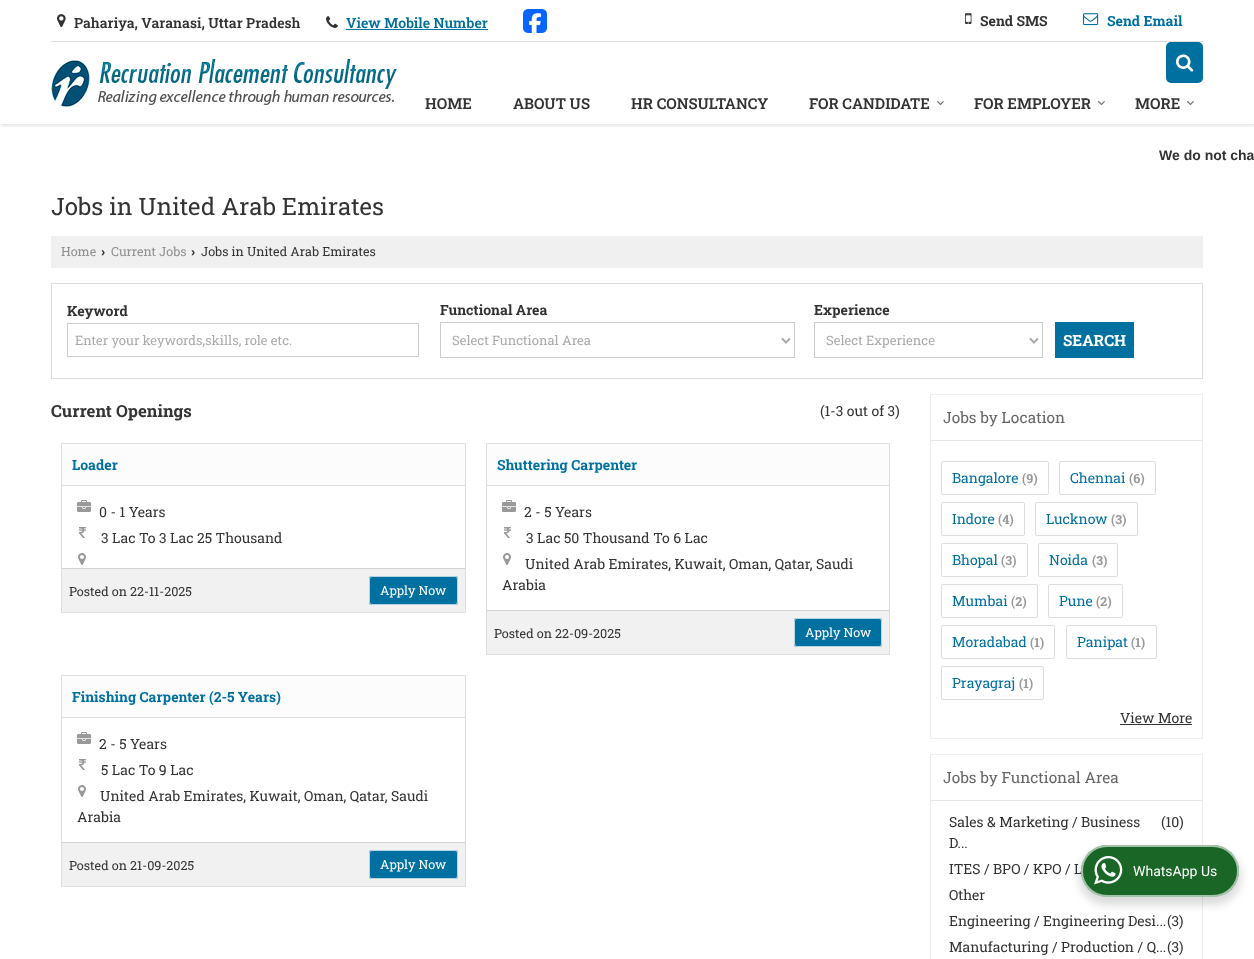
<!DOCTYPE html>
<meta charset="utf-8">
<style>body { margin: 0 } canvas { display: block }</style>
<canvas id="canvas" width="1254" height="959"></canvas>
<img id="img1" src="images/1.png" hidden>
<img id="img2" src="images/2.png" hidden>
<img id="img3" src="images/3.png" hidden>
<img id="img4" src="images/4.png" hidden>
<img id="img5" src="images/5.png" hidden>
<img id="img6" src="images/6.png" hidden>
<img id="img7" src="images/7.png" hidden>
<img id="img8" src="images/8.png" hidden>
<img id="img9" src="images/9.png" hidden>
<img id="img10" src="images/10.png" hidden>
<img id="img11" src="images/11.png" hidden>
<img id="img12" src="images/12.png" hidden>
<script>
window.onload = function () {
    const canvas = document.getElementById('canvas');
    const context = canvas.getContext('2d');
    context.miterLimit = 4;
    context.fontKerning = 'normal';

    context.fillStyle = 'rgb(255, 255, 255)';
    context.fillRect(0, 0, 1254, 959);
    context.fillStyle = 'rgb(222, 222, 222)';
    context.fillRect(51, 41, 1152, 1);
    context.drawImage(document.getElementById('img1'), 57, 14, 9, 13);
    context.drawImage(document.getElementById('img2'), 326, 16, 12, 12);
    context.fillStyle = 'rgb(0, 112, 161)';
    context.fillRect(346, 29, 142, 1);
    context.drawImage(document.getElementById('img3'), 523, 9, 24, 24);
    context.drawImage(document.getElementById('img4'), 965, 13, 7, 11);
    context.drawImage(document.getElementById('img5'), 1083, 13, 16, 13);
    context.save();
    context.beginPath();
    context.rect(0, 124, 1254, 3);
    context.clip();
    context.fillStyle = 'rgba(0, 0, 0, 0.1)';
    context.filter = 'blur(1.5px)';
    context.beginPath();
    context.rect(1, 44, 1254, 82);
    context.fill();
    context.filter = 'none';
    context.restore();
    context.drawImage(document.getElementById('img6'), 51, 59, 346, 48);
    context.beginPath();
    context.roundRect(1166, 42, 37, 41, 5);
    context.fill();
    context.drawImage(document.getElementById('img7'), 1176, 54, 18, 18);
    context.drawImage(document.getElementById('img8'), 937, 101, 7, 5);
    context.drawImage(document.getElementById('img8'), 1098, 101, 7, 5);
    context.drawImage(document.getElementById('img8'), 1187, 101, 7, 5);
    context.fillStyle = 'rgb(240, 240, 240)';
    context.fillRect(51, 236, 1152, 32);
    context.strokeStyle = 'rgb(222, 222, 222)';
    context.strokeRect(51.5, 283.5, 1151, 95);
    context.strokeStyle = 'rgb(204, 204, 204)';
    context.strokeRect(67.5, 323.5, 351, 33);
    context.strokeRect(440.5, 322.5, 354, 35);
    context.beginPath();
    context.moveTo(782, 338.5);
    context.lineTo(786, 342.5);
    context.lineTo(790, 338.5);
    context.strokeStyle = 'rgb(170, 170, 170)';
    context.lineWidth = 2;
    context.stroke();
    context.strokeStyle = 'rgb(204, 204, 204)';
    context.lineWidth = 1;
    context.strokeRect(814.5, 322.5, 228, 35);
    context.beginPath();
    context.moveTo(1030, 338.5);
    context.lineTo(1034, 342.5);
    context.lineTo(1038, 338.5);
    context.strokeStyle = 'rgb(170, 170, 170)';
    context.lineWidth = 2;
    context.stroke();
    context.fillStyle = 'rgb(0, 112, 161)';
    context.fillRect(1055, 322, 79, 36);
    context.strokeStyle = 'rgb(222, 222, 222)';
    context.lineWidth = 1;
    context.strokeRect(61.5, 443.5, 404, 169);
    context.fillStyle = 'rgb(252, 252, 252)';
    context.fillRect(62, 444, 403, 41);
    context.fillStyle = 'rgb(222, 222, 222)';
    context.fillRect(62, 485, 403, 1);
    context.drawImage(document.getElementById('img9'), 77, 500, 14, 12);
    context.drawImage(document.getElementById('img10'), 79, 527, 7, 11);
    context.drawImage(document.getElementById('img11'), 78, 553, 8, 12);
    context.fillStyle = 'rgb(241, 241, 241)';
    context.fillRect(62, 569, 403, 43);
    context.fillStyle = 'rgb(210, 210, 210)';
    context.fillRect(62, 568, 403, 1);
    context.fillStyle = 'rgb(0, 112, 161)';
    context.beginPath();
    context.roundRect(369, 576, 89, 29, 3);
    context.fill();
    context.beginPath();
    context.roundRect(369.5, 576.5, 88, 28, 2.5);
    context.strokeStyle = 'rgba(255, 255, 255, 0.7)';
    context.stroke();
    context.strokeStyle = 'rgb(222, 222, 222)';
    context.strokeRect(486.5, 443.5, 403, 211);
    context.fillStyle = 'rgb(252, 252, 252)';
    context.fillRect(487, 444, 402, 41);
    context.fillStyle = 'rgb(222, 222, 222)';
    context.fillRect(487, 485, 402, 1);
    context.drawImage(document.getElementById('img9'), 502, 500, 14, 12);
    context.drawImage(document.getElementById('img10'), 504, 527, 7, 11);
    context.drawImage(document.getElementById('img11'), 503, 553, 8, 12);
    context.fillStyle = 'rgb(241, 241, 241)';
    context.fillRect(487, 611, 402, 43);
    context.fillStyle = 'rgb(210, 210, 210)';
    context.fillRect(487, 610, 402, 1);
    context.fillStyle = 'rgb(0, 112, 161)';
    context.beginPath();
    context.roundRect(794, 618, 88, 29, 3);
    context.fill();
    context.beginPath();
    context.roundRect(794.5, 618.5, 87, 28, 2.5);
    context.strokeStyle = 'rgba(255, 255, 255, 0.7)';
    context.stroke();
    context.strokeStyle = 'rgb(222, 222, 222)';
    context.strokeRect(61.5, 675.5, 404, 211);
    context.fillStyle = 'rgb(252, 252, 252)';
    context.fillRect(62, 676, 403, 41);
    context.fillStyle = 'rgb(222, 222, 222)';
    context.fillRect(62, 717, 403, 1);
    context.drawImage(document.getElementById('img9'), 77, 732, 14, 12);
    context.drawImage(document.getElementById('img10'), 79, 759, 7, 11);
    context.drawImage(document.getElementById('img11'), 78, 785, 8, 12);
    context.fillStyle = 'rgb(241, 241, 241)';
    context.fillRect(62, 843, 403, 43);
    context.fillStyle = 'rgb(210, 210, 210)';
    context.fillRect(62, 842, 403, 1);
    context.fillStyle = 'rgb(0, 112, 161)';
    context.beginPath();
    context.roundRect(369, 850, 89, 29, 3);
    context.fill();
    context.beginPath();
    context.roundRect(369.5, 850.5, 88, 28, 2.5);
    context.strokeStyle = 'rgba(255, 255, 255, 0.7)';
    context.stroke();
    context.strokeStyle = 'rgb(237, 237, 237)';
    context.strokeRect(930.5, 394.5, 272, 344);
    context.fillStyle = 'rgb(230, 230, 230)';
    context.fillRect(931, 440, 271, 1);
    context.beginPath();
    context.roundRect(941.5, 461.5, 107, 33, 1.5);
    context.strokeStyle = 'rgb(222, 222, 222)';
    context.stroke();
    context.beginPath();
    context.roundRect(1059.5, 461.5, 96, 33, 1.5);
    context.stroke();
    context.beginPath();
    context.roundRect(941.5, 502.5, 83, 33, 1.5);
    context.stroke();
    context.beginPath();
    context.roundRect(1035.5, 502.5, 102, 33, 1.5);
    context.stroke();
    context.beginPath();
    context.roundRect(941.5, 543.5, 86, 33, 1.5);
    context.stroke();
    context.beginPath();
    context.roundRect(1038.5, 543.5, 79, 33, 1.5);
    context.stroke();
    context.beginPath();
    context.roundRect(941.5, 584.5, 96, 33, 1.5);
    context.stroke();
    context.beginPath();
    context.roundRect(1048.5, 584.5, 74, 33, 1.5);
    context.stroke();
    context.beginPath();
    context.roundRect(941.5, 625.5, 113, 33, 1.5);
    context.stroke();
    context.beginPath();
    context.roundRect(1066.5, 625.5, 90, 33, 1.5);
    context.stroke();
    context.beginPath();
    context.roundRect(941.5, 666.5, 102, 33, 1.5);
    context.stroke();
    context.fillStyle = 'rgb(51, 51, 51)';
    context.fillRect(1120, 724, 72, 1);
    context.strokeStyle = 'rgb(237, 237, 237)';
    context.strokeRect(930.5, 754.5, 272, 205);
    context.fillStyle = 'rgb(230, 230, 230)';
    context.fillRect(931, 800, 271, 1);
    context.fillStyle = 'rgba(0, 0, 0, 0.14)';
    context.filter = 'blur(4px)';
    context.beginPath();
    context.roundRect(1079, 849, 162, 56, 28);
    context.fill();
    context.filter = 'none';
    context.font = '600 14px Roboto Slab';
    context.fillStyle = 'rgb(51, 51, 51)';
    context.fillText('Pahariya, Varanasi, Uttar Pradesh', 74, 28);
    context.fillStyle = 'rgb(0, 112, 161)';
    context.fillText('View Mobile Number', 346, 28);
    context.font = 'bold 14px Roboto Slab';
    context.fillStyle = 'rgb(51, 51, 51)';
    context.fillText('Send SMS', 980, 26);
    context.fillStyle = 'rgb(0, 112, 161)';
    context.fillText('Send Email', 1107, 26);
    context.font = '600 15px Roboto Slab';
    context.fillStyle = 'rgb(51, 51, 51)';
    context.fillText('HOME', 425, 109);
    context.fillText('ABOUT US', 513, 109);
    context.fillText('HR CONSULTANCY', 631, 109);
    context.fillText('FOR CANDIDATE', 809, 109);
    context.fillText('FOR EMPLOYER', 974, 109);
    context.fillText('MORE', 1135, 109);
    context.font = 'bold 14px Liberation Sans';
    context.fillText('We do not cha', 1159, 160);
    context.font = '24px Roboto Slab';
    context.fillText('Jobs in United Arab Emirates', 51, 215);
    context.font = '12.6px Roboto Slab';
    context.fillStyle = 'rgb(144, 144, 144)';
    context.fillText('Home', 61, 256);
    context.font = 'bold 12.6px Liberation Sans';
    context.fillStyle = 'rgb(51, 51, 51)';
    context.fillText('›', 101, 256);
    context.font = '12.6px Roboto Slab';
    context.fillStyle = 'rgb(144, 144, 144)';
    context.fillText('Current Jobs', 111, 256);
    context.font = 'bold 12.6px Liberation Sans';
    context.fillStyle = 'rgb(51, 51, 51)';
    context.fillText('›', 191, 256);
    context.font = '12.6px Roboto Slab';
    context.fillText('Jobs in United Arab Emirates', 201, 256);
    context.font = 'bold 14px Roboto Slab';
    context.fillText('Keyword', 67, 316);
    context.font = '13px Roboto Slab';
    context.fillStyle = 'rgb(170, 170, 170)';
    context.fillText('Enter your keywords,skills, role etc.', 75, 345);
    context.font = 'bold 14px Roboto Slab';
    context.fillStyle = 'rgb(51, 51, 51)';
    context.fillText('Functional Area', 440, 315);
    context.font = '13px Roboto Slab';
    context.fillStyle = 'rgb(170, 170, 170)';
    context.fillText('Select Functional Area', 452, 345);
    context.font = 'bold 14px Roboto Slab';
    context.fillStyle = 'rgb(51, 51, 51)';
    context.fillText('Experience', 814, 315);
    context.font = '13px Roboto Slab';
    context.fillStyle = 'rgb(170, 170, 170)';
    context.fillText('Select Experience', 826, 345);
    context.font = 'bold 15.4px Roboto Slab';
    context.fillStyle = 'rgb(255, 255, 255)';
    context.fillText('SEARCH', 1063, 346);
    context.font = 'bold 16.75px Roboto Slab';
    context.fillStyle = 'rgb(51, 51, 51)';
    context.fillText('Current Openings', 51, 417);
    context.font = '14px Roboto Slab';
    context.fillText('(1-3 out of 3)', 820, 416);
    context.font = 'bold 14px Roboto Slab';
    context.fillStyle = 'rgb(0, 112, 161)';
    context.fillText('Loader', 72, 470);
    context.font = '14px Roboto Slab';
    context.fillStyle = 'rgb(51, 51, 51)';
    context.fillText('0 - 1 Years', 99, 517);
    context.fillText('3 Lac To 3 Lac 25 Thousand', 101, 543);
    context.font = '12.6px Roboto Slab';
    context.fillText('Posted on 22-11-2025', 69, 596);
    context.fillStyle = 'rgb(255, 255, 255)';
    context.fillText('Apply Now', 380, 595);
    context.font = 'bold 14px Roboto Slab';
    context.fillStyle = 'rgb(0, 112, 161)';
    context.fillText('Shuttering Carpenter', 497, 470);
    context.font = '14px Roboto Slab';
    context.fillStyle = 'rgb(51, 51, 51)';
    context.fillText('2 - 5 Years', 524, 517);
    context.fillText('3 Lac 50 Thousand To 6 Lac', 526, 543);
    context.fillText('United Arab Emirates, Kuwait, Oman, Qatar, Saudi', 525, 569);
    context.fillText('Arabia', 502, 590);
    context.font = '12.6px Roboto Slab';
    context.fillText('Posted on 22-09-2025', 494, 638);
    context.fillStyle = 'rgb(255, 255, 255)';
    context.fillText('Apply Now', 805, 637);
    context.font = 'bold 14px Roboto Slab';
    context.fillStyle = 'rgb(0, 112, 161)';
    context.fillText('Finishing Carpenter (2-5 Years)', 72, 702);
    context.font = '14px Roboto Slab';
    context.fillStyle = 'rgb(51, 51, 51)';
    context.fillText('2 - 5 Years', 99, 749);
    context.fillText('5 Lac To 9 Lac', 101, 775);
    context.fillText('United Arab Emirates, Kuwait, Oman, Qatar, Saudi', 100, 801);
    context.fillText('Arabia', 77, 822);
    context.font = '12.6px Roboto Slab';
    context.fillText('Posted on 21-09-2025', 69, 870);
    context.fillStyle = 'rgb(255, 255, 255)';
    context.fillText('Apply Now', 380, 869);
    context.font = '15.4px Roboto Slab';
    context.fillStyle = 'rgb(102, 102, 102)';
    context.fillText('Jobs by Location', 943, 423);
    context.font = '14px Roboto Slab';
    context.fillStyle = 'rgb(0, 112, 161)';
    context.fillText('Bangalore', 952, 483);
    context.font = 'bold 12.6px Roboto Slab';
    context.fillStyle = 'rgb(153, 153, 153)';
    context.fillText('(9)', 1022, 483);
    context.font = '14px Roboto Slab';
    context.fillStyle = 'rgb(0, 112, 161)';
    context.fillText('Chennai', 1070, 483);
    context.font = 'bold 12.6px Roboto Slab';
    context.fillStyle = 'rgb(153, 153, 153)';
    context.fillText('(6)', 1129, 483);
    context.font = '14px Roboto Slab';
    context.fillStyle = 'rgb(0, 112, 161)';
    context.fillText('Indore', 952, 524);
    context.font = 'bold 12.6px Roboto Slab';
    context.fillStyle = 'rgb(153, 153, 153)';
    context.fillText('(4)', 998, 524);
    context.font = '14px Roboto Slab';
    context.fillStyle = 'rgb(0, 112, 161)';
    context.fillText('Lucknow', 1046, 524);
    context.font = 'bold 12.6px Roboto Slab';
    context.fillStyle = 'rgb(153, 153, 153)';
    context.fillText('(3)', 1111, 524);
    context.font = '14px Roboto Slab';
    context.fillStyle = 'rgb(0, 112, 161)';
    context.fillText('Bhopal', 952, 565);
    context.font = 'bold 12.6px Roboto Slab';
    context.fillStyle = 'rgb(153, 153, 153)';
    context.fillText('(3)', 1001, 565);
    context.font = '14px Roboto Slab';
    context.fillStyle = 'rgb(0, 112, 161)';
    context.fillText('Noida', 1049, 565);
    context.font = 'bold 12.6px Roboto Slab';
    context.fillStyle = 'rgb(153, 153, 153)';
    context.fillText('(3)', 1092, 565);
    context.font = '14px Roboto Slab';
    context.fillStyle = 'rgb(0, 112, 161)';
    context.fillText('Mumbai', 952, 606);
    context.font = 'bold 12.6px Roboto Slab';
    context.fillStyle = 'rgb(153, 153, 153)';
    context.fillText('(2)', 1011, 606);
    context.font = '14px Roboto Slab';
    context.fillStyle = 'rgb(0, 112, 161)';
    context.fillText('Pune', 1059, 606);
    context.font = 'bold 12.6px Roboto Slab';
    context.fillStyle = 'rgb(153, 153, 153)';
    context.fillText('(2)', 1096, 606);
    context.font = '14px Roboto Slab';
    context.fillStyle = 'rgb(0, 112, 161)';
    context.fillText('Moradabad', 952, 647);
    context.font = 'bold 12.6px Roboto Slab';
    context.fillStyle = 'rgb(153, 153, 153)';
    context.fillText('(1)', 1030, 647);
    context.font = '14px Roboto Slab';
    context.fillStyle = 'rgb(0, 112, 161)';
    context.fillText('Panipat', 1077, 647);
    context.font = 'bold 12.6px Roboto Slab';
    context.fillStyle = 'rgb(153, 153, 153)';
    context.fillText('(1)', 1131, 647);
    context.font = '14px Roboto Slab';
    context.fillStyle = 'rgb(0, 112, 161)';
    context.fillText('Prayagraj', 952, 688);
    context.font = 'bold 12.6px Roboto Slab';
    context.fillStyle = 'rgb(153, 153, 153)';
    context.fillText('(1)', 1019, 688);
    context.font = '14px Roboto Slab';
    context.fillStyle = 'rgb(51, 51, 51)';
    context.fillText('View More', 1120, 723);
    context.font = '15.4px Roboto Slab';
    context.fillStyle = 'rgb(102, 102, 102)';
    context.fillText('Jobs by Functional Area', 943, 783);
    context.font = '14px Roboto Slab';
    context.fillStyle = 'rgb(51, 51, 51)';
    context.fillText('Sales & Marketing / Business', 949, 827);
    context.fillText('(10)', 1161, 827);
    context.fillText('D...', 949, 848);
    context.fillText('ITES / BPO / KPO / L', 949, 874);
    context.fillText('Other', 949, 900);
    context.fillText('Engineering / Engineering Desi...', 949, 926);
    context.fillText('(3)', 1167, 926);
    context.fillText('Manufacturing / Production / Q...', 949, 952);
    context.fillText('(3)', 1167, 952);
    context.fillStyle = 'rgb(25, 102, 38)';
    context.beginPath();
    context.roundRect(1081, 845, 158, 52, 26);
    context.fill();
    context.beginPath();
    context.roundRect(1082, 846, 156, 50, 25);
    context.strokeStyle = 'rgba(255, 255, 255, 0.6)';
    context.lineWidth = 2;
    context.stroke();
    context.drawImage(document.getElementById('img12'), 1094, 856, 29, 29);
    context.font = '14px Roboto';
    context.fillStyle = 'rgb(255, 255, 255)';
    context.fillText('WhatsApp Us', 1133, 876);
};
</script>
